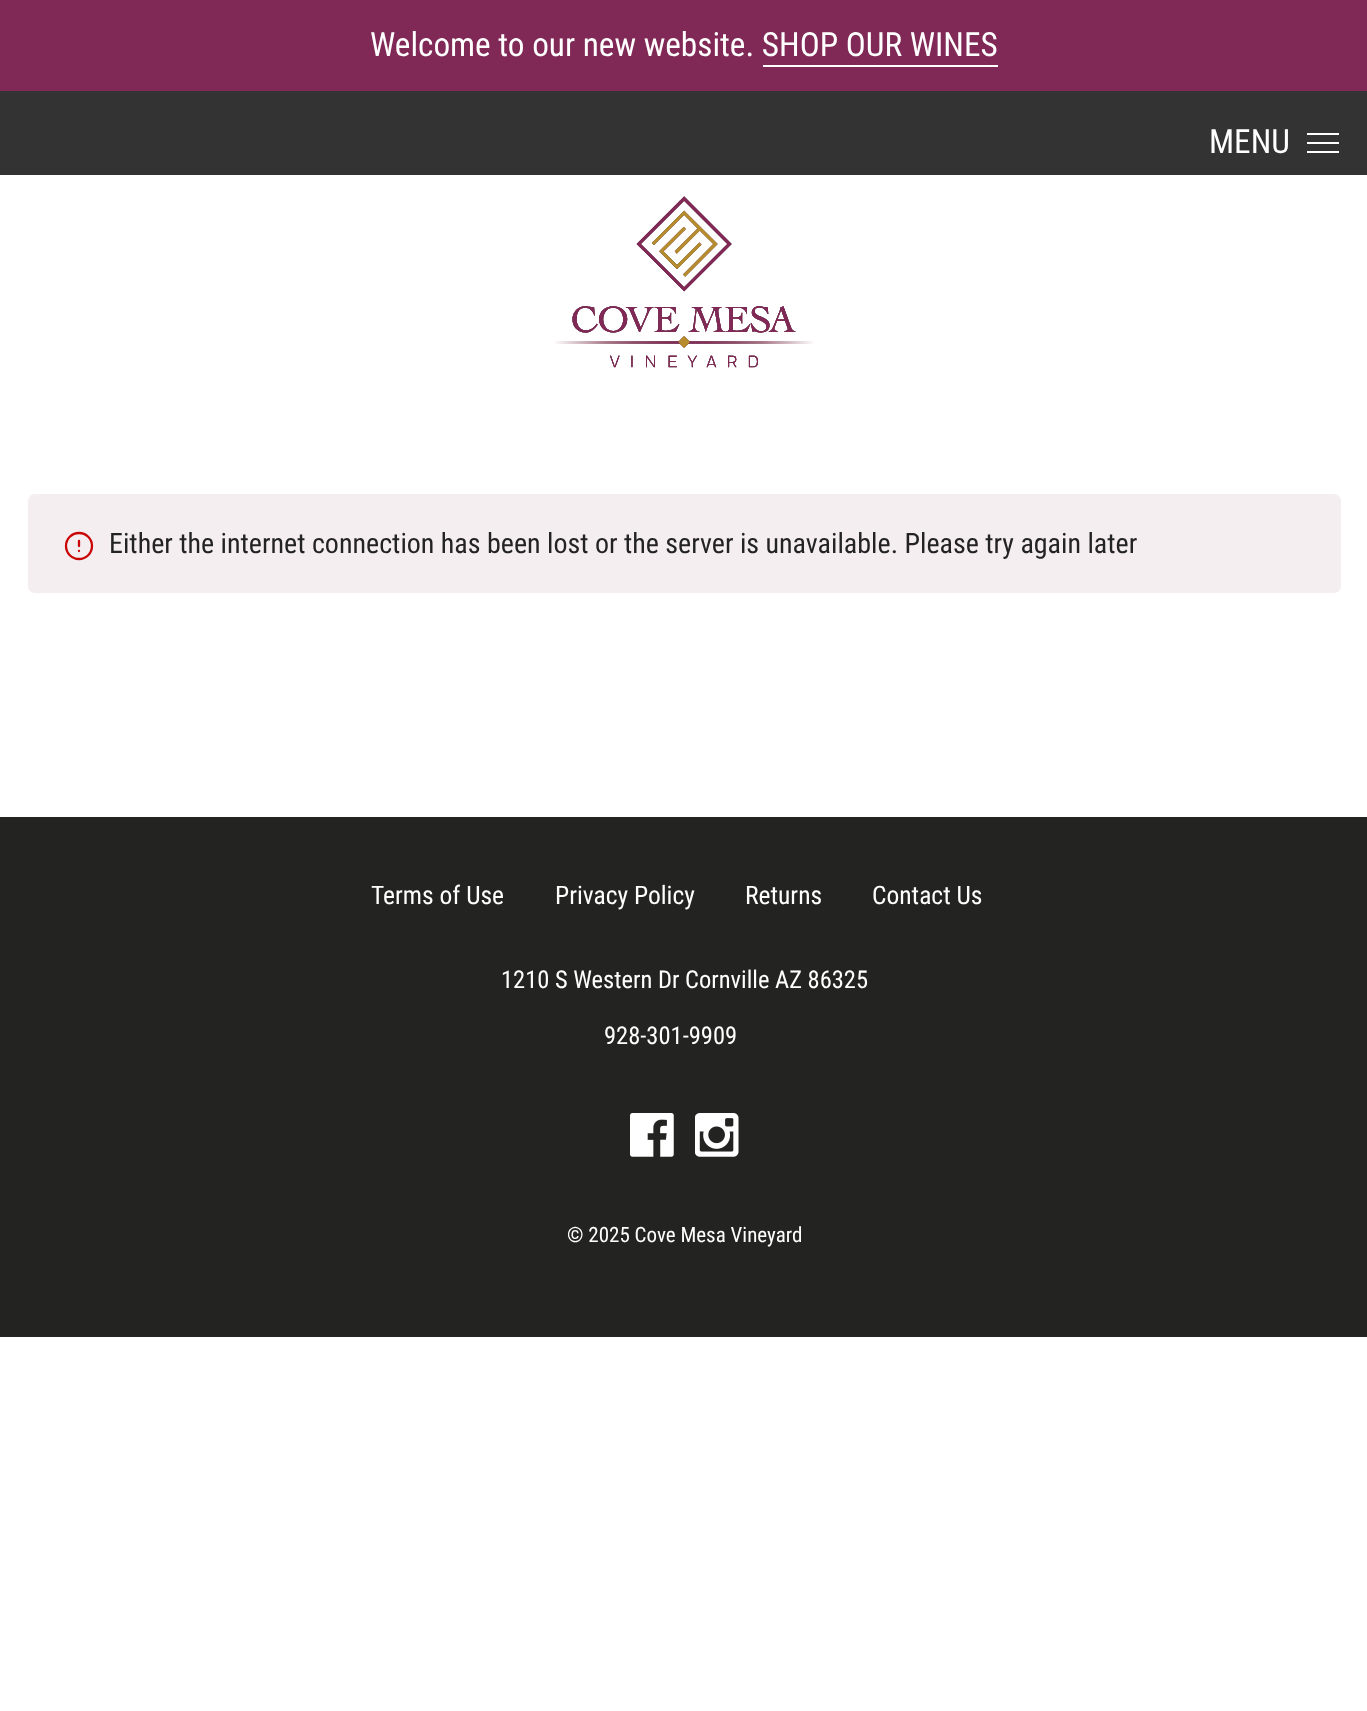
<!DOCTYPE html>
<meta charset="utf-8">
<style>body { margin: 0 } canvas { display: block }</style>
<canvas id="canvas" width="1367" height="1711"></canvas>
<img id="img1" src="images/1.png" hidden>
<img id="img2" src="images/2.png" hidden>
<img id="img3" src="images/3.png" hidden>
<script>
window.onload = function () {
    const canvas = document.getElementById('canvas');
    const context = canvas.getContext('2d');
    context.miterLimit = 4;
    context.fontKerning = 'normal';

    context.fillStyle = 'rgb(255, 255, 255)';
    context.fillRect(0, 0, 1367, 1711);
    context.fillStyle = 'rgb(128, 40, 86)';
    context.fillRect(0, 0, 1367, 91);
    context.fillStyle = 'rgb(255, 255, 255)';
    context.fillRect(763, 65, 235, 2);
    context.fillStyle = 'rgb(51, 51, 51)';
    context.fillRect(0, 91, 1367, 84);
    context.fillStyle = 'rgb(255, 255, 255)';
    context.fillRect(1307, 142, 32, 2);
    context.fillRect(1307, 133, 32, 2);
    context.fillRect(1307, 151, 32, 2);
    context.drawImage(document.getElementById('img1'), 555, 196, 259, 172);
    context.fillStyle = 'rgb(245, 238, 241)';
    context.beginPath();
    context.roundRect(28, 494, 1313, 99, 7);
    context.fill();
    context.beginPath();
    context.arc(79, 546, 13, 0, 2 * Math.PI);
    context.strokeStyle = 'rgb(202, 5, 5)';
    context.lineWidth = 2.3;
    context.stroke();
    context.beginPath();
    context.moveTo(79, 541);
    context.lineTo(79, 546);
    context.moveTo(79, 551);
    context.lineTo(79, 551);
    context.lineCap = 'round';
    context.lineJoin = 'round';
    context.stroke();
    context.fillStyle = 'rgb(35, 35, 33)';
    context.fillRect(0, 817, 1367, 520);
    context.drawImage(document.getElementById('img2'), 630, 1113, 44, 44);
    context.drawImage(document.getElementById('img3'), 695, 1113, 44, 44);
    context.font = '33.25px Roboto Condensed';
    context.fillStyle = 'rgb(255, 255, 255)';
    context.fillText('Welcome to our new website. SHOP OUR WINES', 370, 56);
    context.fillText('MENU', 1209, 153);
    context.font = '28px Roboto Condensed';
    context.fillStyle = 'rgb(35, 35, 36)';
    context.fillText('Either the internet connection has been lost or the server is unavailable. Please try again later', 109, 553);
    context.font = '25.5px Roboto Condensed';
    context.fillStyle = 'rgb(255, 255, 255)';
    context.fillText('Terms of Use', 371, 904);
    context.fillText('Privacy Policy', 555, 904);
    context.fillText('Returns', 745, 904);
    context.fillText('Contact Us', 872, 904);
    context.font = '24.5px Roboto Condensed';
    context.fillText('1210 S Western Dr Cornville AZ 86325', 501, 988);
    context.fillText('928-301-9909', 604, 1044);
    context.font = '21px Roboto Condensed';
    context.fillText('© 2025 Cove Mesa Vineyard', 567, 1242);
};
</script>
